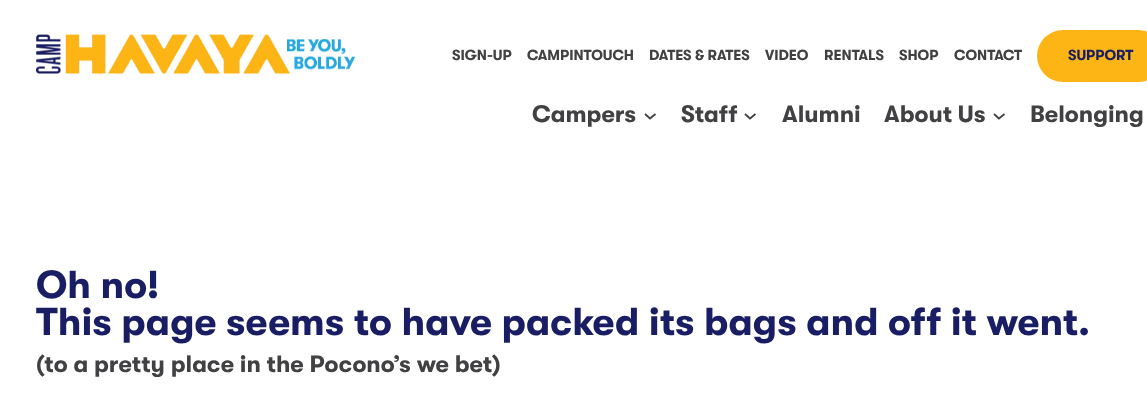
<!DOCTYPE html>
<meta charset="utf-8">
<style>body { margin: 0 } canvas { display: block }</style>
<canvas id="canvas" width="1147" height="415"></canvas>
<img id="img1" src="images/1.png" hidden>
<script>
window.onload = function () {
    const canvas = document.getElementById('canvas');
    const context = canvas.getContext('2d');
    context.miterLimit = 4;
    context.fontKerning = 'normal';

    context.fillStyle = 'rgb(255, 255, 255)';
    context.fillRect(0, 0, 1147, 415);
    context.drawImage(document.getElementById('img1'), 36, 34, 319, 40);
    context.fillStyle = 'rgb(253, 181, 21)';
    context.beginPath();
    context.roundRect(1037, 30, 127, 52, 26);
    context.fill();
    context.beginPath();
    context.moveTo(645, 114);
    context.lineTo(650, 118.5);
    context.lineTo(655.5, 114);
    context.strokeStyle = 'rgb(65, 64, 66)';
    context.lineWidth = 1.8;
    context.stroke();
    context.beginPath();
    context.moveTo(745, 114);
    context.lineTo(750, 118.5);
    context.lineTo(755.5, 114);
    context.stroke();
    context.beginPath();
    context.moveTo(994, 114);
    context.lineTo(999, 118.5);
    context.lineTo(1004.5, 114);
    context.stroke();
    context.font = 'bold 14.5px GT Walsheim';
    context.fillStyle = 'rgb(65, 64, 66)';
    context.fillText('SIGN-UP', 452, 60);
    context.fillText('CAMPINTOUCH', 527, 60);
    context.fillText('DATES & RATES', 649, 60);
    context.fillText('VIDEO', 765, 60);
    context.fillText('RENTALS', 824, 60);
    context.fillText('SHOP', 899, 60);
    context.fillText('CONTACT', 954, 60);
    context.fillStyle = 'rgb(25, 29, 99)';
    context.fillText('SUPPORT', 1068, 60);
    context.font = 'bold 23.75px GT Walsheim';
    context.fillStyle = 'rgb(65, 64, 66)';
    context.fillText('Campers', 532, 122);
    context.fillText('Staff', 681, 122);
    context.fillText('Alumni', 782, 122);
    context.fillText('About Us', 884, 122);
    context.fillText('Belonging', 1030, 122);
    context.font = 'bold 39.05px GT Walsheim';
    context.fillStyle = 'rgb(25, 29, 99)';
    context.fillText('Oh no!', 36, 298);
    context.fillText('This page seems to have packed its bags and off it went.', 36, 335);
    context.font = 'bold 23.75px GT Walsheim';
    context.fillStyle = 'rgb(65, 64, 66)';
    context.fillText('(to a pretty place in the Pocono’s we bet)', 36, 372);
};
</script>
